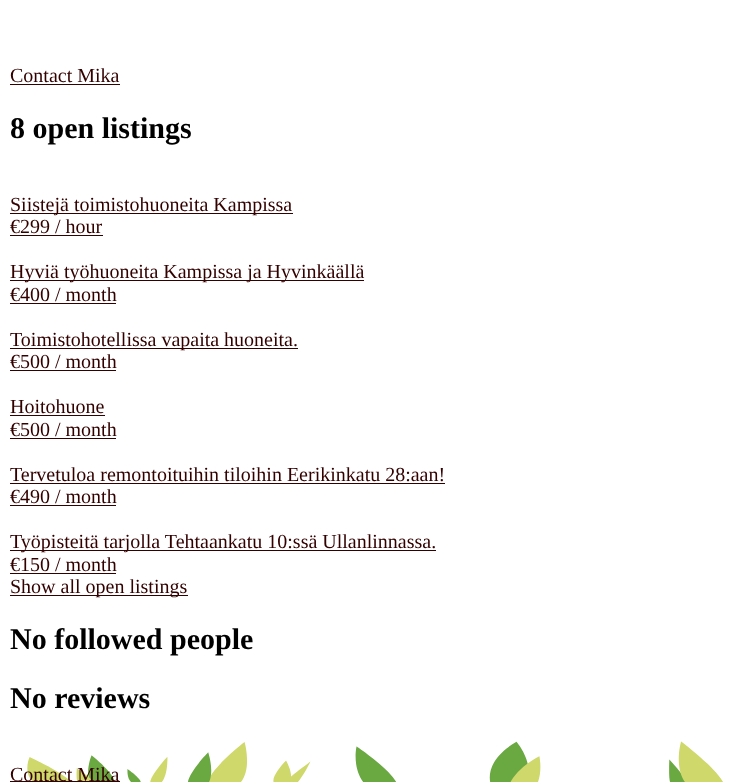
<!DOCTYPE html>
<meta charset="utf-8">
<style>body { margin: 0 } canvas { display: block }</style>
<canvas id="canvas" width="749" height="782"></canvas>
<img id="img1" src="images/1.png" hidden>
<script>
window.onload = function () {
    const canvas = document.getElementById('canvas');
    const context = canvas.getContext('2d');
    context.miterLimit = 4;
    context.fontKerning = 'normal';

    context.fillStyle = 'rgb(255, 255, 255)';
    context.fillRect(0, 0, 749, 782);
    context.drawImage(document.getElementById('img1'), 27, 741, 696, 41);
    context.fillStyle = 'rgb(51, 0, 0)';
    context.fillRect(10, 84, 110, 1);
    context.fillRect(10, 213, 283, 1);
    context.fillRect(10, 235, 93, 1);
    context.fillRect(10, 280, 354, 1);
    context.fillRect(10, 303, 106, 1);
    context.fillRect(10, 348, 288, 1);
    context.fillRect(10, 370, 106, 1);
    context.fillRect(10, 415, 95, 1);
    context.fillRect(10, 438, 106, 1);
    context.fillRect(10, 483, 435, 1);
    context.fillRect(10, 505, 106, 1);
    context.fillRect(10, 550, 426, 1);
    context.fillRect(10, 573, 106, 1);
    context.fillRect(10, 595, 178, 1);
    context.fillRect(10, 781, 110, 1);
    context.font = '20px Liberation Serif';
    context.fillText('Contact Mika', 10, 82);
    context.font = 'bold 30px Liberation Serif';
    context.fillStyle = 'rgb(0, 0, 0)';
    context.fillText('8 open listings', 10, 138);
    context.font = '20px Liberation Serif';
    context.fillStyle = 'rgb(51, 0, 0)';
    context.fillText('Siistejä toimistohuoneita Kampissa', 10, 211);
    context.fillText('€299 / hour', 10, 233);
    context.fillText('Hyviä työhuoneita Kampissa ja Hyvinkäällä', 10, 278);
    context.fillText('€400 / month', 10, 301);
    context.fillText('Toimistohotellissa vapaita huoneita.', 10, 346);
    context.fillText('€500 / month', 10, 368);
    context.fillText('Hoitohuone', 10, 413);
    context.fillText('€500 / month', 10, 436);
    context.fillText('Tervetuloa remontoituihin tiloihin Eerikinkatu 28:aan!', 10, 481);
    context.fillText('€490 / month', 10, 503);
    context.fillText('Työpisteitä tarjolla Tehtaankatu 10:ssä Ullanlinnassa.', 10, 548);
    context.fillText('€150 / month', 10, 571);
    context.fillText('Show all open listings', 10, 593);
    context.font = 'bold 30px Liberation Serif';
    context.fillStyle = 'rgb(0, 0, 0)';
    context.fillText('No followed people', 10, 649);
    context.fillText('No reviews', 10, 708);
    context.font = '20px Liberation Serif';
    context.fillStyle = 'rgb(51, 0, 0)';
    context.fillText('Contact Mika', 10, 781);
};
</script>
